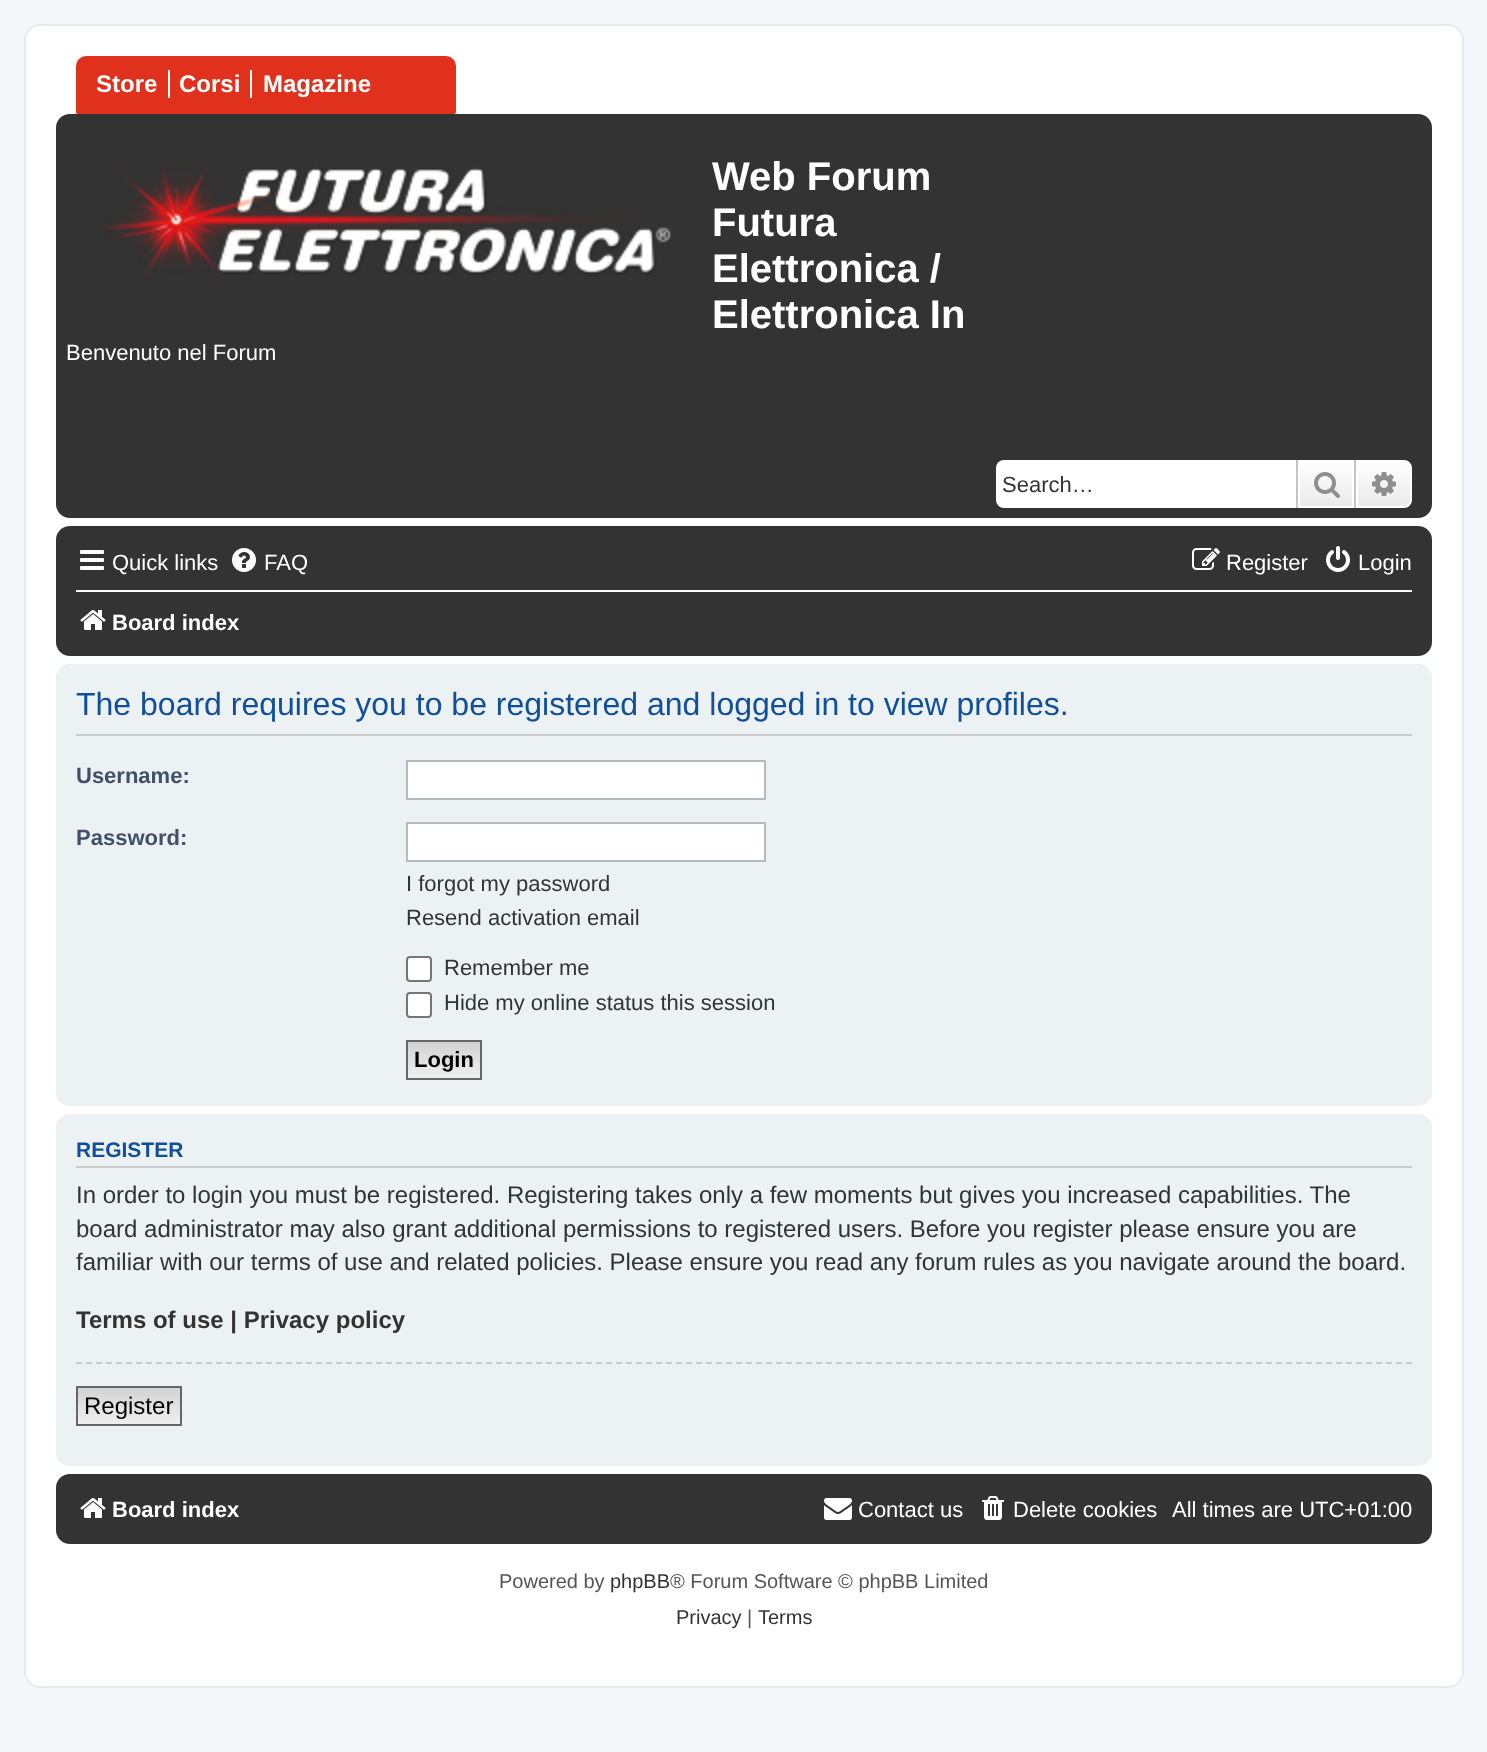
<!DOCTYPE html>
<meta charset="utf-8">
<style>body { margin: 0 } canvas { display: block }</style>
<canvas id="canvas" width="1487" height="1752"></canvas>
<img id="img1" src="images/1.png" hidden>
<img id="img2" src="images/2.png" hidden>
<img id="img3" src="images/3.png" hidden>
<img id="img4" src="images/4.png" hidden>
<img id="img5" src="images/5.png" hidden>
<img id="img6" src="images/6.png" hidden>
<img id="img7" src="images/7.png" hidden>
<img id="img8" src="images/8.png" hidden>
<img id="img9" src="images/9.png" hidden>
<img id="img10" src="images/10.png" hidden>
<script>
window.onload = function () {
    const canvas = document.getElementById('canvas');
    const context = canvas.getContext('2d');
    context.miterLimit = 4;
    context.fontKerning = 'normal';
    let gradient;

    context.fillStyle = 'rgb(245, 247, 250)';
    context.fillRect(0, 0, 1487, 1752);
    context.fillStyle = 'rgb(255, 255, 255)';
    context.beginPath();
    context.roundRect(25, 25, 1438, 1662, 15);
    context.fill();
    context.strokeStyle = 'rgb(230, 233, 237)';
    context.lineWidth = 2;
    context.stroke();
    context.fillStyle = 'rgb(224, 49, 29)';
    context.beginPath();
    context.roundRect(76, 56, 380, 58, [10, 10, 2, 2]);
    context.fill();
    context.fillStyle = 'rgb(255, 255, 255)';
    context.fillRect(168, 70, 2, 28);
    context.fillRect(250, 70, 2, 28);
    context.fillStyle = 'rgb(51, 51, 51)';
    context.beginPath();
    context.roundRect(56, 114, 1376, 404, 14);
    context.fill();
    context.drawImage(document.getElementById('img1'), 102, 160, 569, 119);
    context.fillStyle = 'rgb(255, 255, 255)';
    context.beginPath();
    context.roundRect(996, 460, 300, 48, [8, 0, 0, 8]);
    context.fill();
    gradient = context.createLinearGradient(1326, 460, 1326, 508);
    gradient.addColorStop(0, 'rgb(255, 255, 255)');
    gradient.addColorStop(1, 'rgb(233, 233, 233)');
    context.fillStyle = gradient;
    context.fillRect(1300, 462, 52, 44);
    context.strokeStyle = 'rgb(255, 255, 255)';
    context.strokeRect(1299, 461, 54, 46);
    context.fillStyle = 'rgb(199, 195, 191)';
    context.fillRect(1354, 460, 2, 48);
    context.fillRect(1296, 460, 2, 48);
    context.drawImage(document.getElementById('img2'), 1314, 472, 26, 26);
    gradient = context.createLinearGradient(1384, 460, 1384, 508);
    gradient.addColorStop(0, 'rgb(255, 255, 255)');
    gradient.addColorStop(1, 'rgb(233, 233, 233)');
    context.fillStyle = gradient;
    context.beginPath();
    context.roundRect(1357, 461, 54, 46, [0, 7, 7, 0]);
    context.fill();
    context.stroke();
    context.drawImage(document.getElementById('img3'), 1372, 472, 24, 24);
    context.fillStyle = 'rgb(51, 51, 51)';
    context.beginPath();
    context.roundRect(56, 526, 1376, 130, 14);
    context.fill();
    context.drawImage(document.getElementById('img4'), 80, 550, 24, 20);
    context.drawImage(document.getElementById('img5'), 232, 548, 24, 24);
    context.drawImage(document.getElementById('img6'), 1192, 548, 28, 22);
    context.drawImage(document.getElementById('img7'), 1326, 546, 24, 26);
    context.fillStyle = 'rgb(255, 255, 255)';
    context.fillRect(76, 590, 1336, 2);
    context.drawImage(document.getElementById('img8'), 80, 610, 26, 20);
    context.fillStyle = 'rgb(236, 241, 243)';
    context.beginPath();
    context.roundRect(56, 664, 1376, 442, 14);
    context.fill();
    context.fillStyle = 'rgb(204, 204, 204)';
    context.fillRect(76, 734, 1336, 2);
    context.fillStyle = 'rgb(255, 255, 255)';
    context.beginPath();
    context.rect(407, 761, 358, 38);
    context.fill();
    context.strokeStyle = 'rgb(180, 186, 192)';
    context.stroke();
    context.beginPath();
    context.rect(407, 823, 358, 38);
    context.fill();
    context.stroke();
    context.beginPath();
    context.roundRect(407, 957, 24, 24, 3);
    context.fill();
    context.strokeStyle = 'rgb(118, 118, 118)';
    context.stroke();
    context.beginPath();
    context.roundRect(407, 993, 24, 24, 3);
    context.fill();
    context.stroke();
    gradient = context.createLinearGradient(444, 1042, 444, 1078);
    gradient.addColorStop(0, 'rgb(210, 210, 210)');
    gradient.addColorStop(1, 'rgb(239, 239, 239)');
    context.fillStyle = gradient;
    context.fillRect(408, 1042, 72, 36);
    context.strokeStyle = 'rgb(102, 102, 102)';
    context.strokeRect(407, 1041, 74, 38);
    context.fillStyle = 'rgb(236, 241, 243)';
    context.beginPath();
    context.roundRect(56, 1114, 1376, 352, 14);
    context.fill();
    context.fillStyle = 'rgb(204, 204, 204)';
    context.fillRect(76, 1166, 1336, 2);
    context.beginPath();
    context.moveTo(76, 1363);
    context.lineTo(1412, 1363);
    context.strokeStyle = 'rgb(204, 204, 204)';
    context.setLineDash([6, 4]);
    context.stroke();
    gradient = context.createLinearGradient(129, 1388, 129, 1424);
    gradient.addColorStop(0, 'rgb(210, 210, 210)');
    gradient.addColorStop(1, 'rgb(239, 239, 239)');
    context.fillStyle = gradient;
    context.fillRect(78, 1388, 102, 36);
    context.strokeStyle = 'rgb(102, 102, 102)';
    context.setLineDash([]);
    context.strokeRect(77, 1387, 104, 38);
    context.fillStyle = 'rgb(51, 51, 51)';
    context.beginPath();
    context.roundRect(56, 1474, 1376, 70, 14);
    context.fill();
    context.drawImage(document.getElementById('img8'), 80, 1498, 26, 20);
    context.drawImage(document.getElementById('img9'), 824, 1498, 28, 22);
    context.drawImage(document.getElementById('img10'), 982, 1496, 22, 24);
    context.font = 'bold 24px Liberation Sans';
    context.fillStyle = 'rgb(255, 255, 255)';
    context.fillText('Store', 96, 92);
    context.fillText('Corsi', 179, 92);
    context.fillText('Magazine', 263, 92);
    context.font = 'bold 40px Liberation Sans';
    context.fillText('Web Forum', 712, 190);
    context.fillText('Futura', 712, 236);
    context.fillText('Elettronica /', 712, 282);
    context.fillText('Elettronica In', 712, 328);
    context.font = '22px Liberation Sans';
    context.fillText('Benvenuto nel Forum', 66, 360);
    context.fillStyle = 'rgb(51, 51, 51)';
    context.fillText('Search…', 1002, 492);
    context.fillStyle = 'rgb(255, 255, 255)';
    context.fillText('Quick links', 112, 570);
    context.fillText('FAQ', 264, 570);
    context.fillText('Register', 1226, 570);
    context.fillText('Login', 1358, 570);
    context.font = 'bold 22px Liberation Sans';
    context.fillText('Board index', 112, 630);
    context.font = '32px Liberation Sans';
    context.fillStyle = 'rgb(17, 80, 152)';
    context.fillText('The board requires you to be registered and logged in to view profiles.', 76, 715);
    context.font = 'bold 22px Liberation Sans';
    context.fillStyle = 'rgb(66, 80, 103)';
    context.fillText('Username:', 76, 783);
    context.fillText('Password:', 76, 845);
    context.font = '22px Liberation Sans';
    context.fillStyle = 'rgb(51, 51, 51)';
    context.fillText('I forgot my password', 406, 891);
    context.fillText('Resend activation email', 406, 925);
    context.fillText('Remember me', 444, 975);
    context.fillText('Hide my online status this session', 444, 1010);
    context.font = 'bold 22px Liberation Sans';
    context.fillStyle = 'rgb(0, 0, 0)';
    context.fillText('Login', 414, 1067);
    context.font = 'bold 21px Liberation Sans';
    context.fillStyle = 'rgb(17, 80, 152)';
    context.fillText('REGISTER', 76, 1157);
    context.font = '24px Liberation Sans';
    context.fillStyle = 'rgb(51, 51, 51)';
    context.fillText('In order to login you must be registered. Registering takes only a few moments but gives you increased capabilities. The', 76, 1203);
    context.fillText('board administrator may also grant additional permissions to registered users. Before you register please ensure you are', 76, 1237);
    context.fillText('familiar with our terms of use and related policies. Please ensure you read any forum rules as you navigate around the board.', 76, 1270);
    context.font = 'bold 24px Liberation Sans';
    context.fillText('Terms of use | Privacy policy', 76, 1328);
    context.font = '24px Liberation Sans';
    context.fillStyle = 'rgb(0, 0, 0)';
    context.fillText('Register', 84, 1414);
    context.font = 'bold 22px Liberation Sans';
    context.fillStyle = 'rgb(255, 255, 255)';
    context.fillText('Board index', 112, 1517);
    context.font = '22px Liberation Sans';
    context.fillText('Contact us', 858, 1517);
    context.fillText('Delete cookies', 1013, 1517);
    context.fillText('All times are UTC+01:00', 1172, 1517);
    context.font = '20px Liberation Sans';
    context.fillStyle = 'rgb(85, 85, 85)';
    context.fillText('Powered by', 499, 1588);
    context.fillStyle = 'rgb(51, 51, 51)';
    context.fillText('phpBB', 610, 1588);
    context.fillStyle = 'rgb(85, 85, 85)';
    context.fillText('® Forum Software © phpBB Limited', 670, 1588);
    context.fillStyle = 'rgb(51, 51, 51)';
    context.fillText('Privacy', 676, 1624);
    context.fillStyle = 'rgb(85, 85, 85)';
    context.fillText('|', 747, 1624);
    context.fillStyle = 'rgb(51, 51, 51)';
    context.fillText('Terms', 758, 1624);
};
</script>
